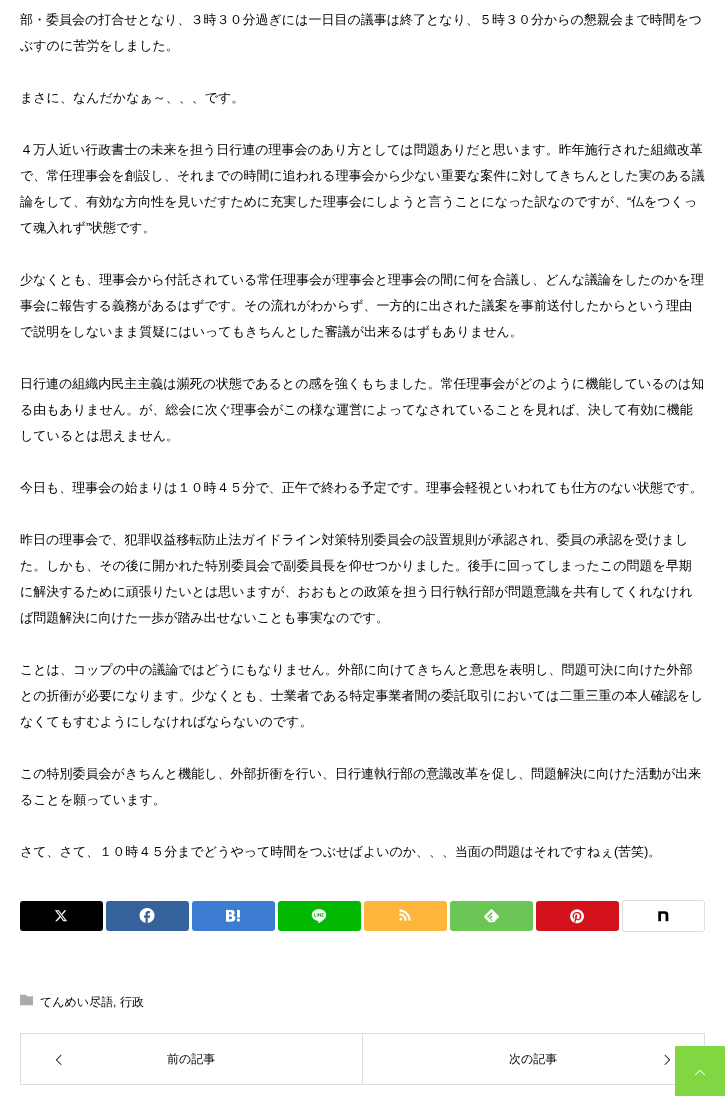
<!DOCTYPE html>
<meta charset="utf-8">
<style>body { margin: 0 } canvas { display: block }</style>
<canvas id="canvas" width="725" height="1096"></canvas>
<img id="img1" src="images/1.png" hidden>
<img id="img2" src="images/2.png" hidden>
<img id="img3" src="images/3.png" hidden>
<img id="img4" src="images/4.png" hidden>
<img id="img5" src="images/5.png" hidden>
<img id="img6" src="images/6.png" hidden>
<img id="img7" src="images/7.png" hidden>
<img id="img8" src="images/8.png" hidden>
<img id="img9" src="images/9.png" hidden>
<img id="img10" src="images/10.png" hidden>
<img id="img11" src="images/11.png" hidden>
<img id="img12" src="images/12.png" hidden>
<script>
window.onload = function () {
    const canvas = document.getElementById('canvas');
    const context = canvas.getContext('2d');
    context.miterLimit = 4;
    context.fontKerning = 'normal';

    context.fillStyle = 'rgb(255, 255, 255)';
    context.fillRect(0, 0, 725, 1096);
    context.fillStyle = 'rgb(0, 0, 0)';
    context.beginPath();
    context.roundRect(20, 901, 83, 30, 3);
    context.fill();
    context.drawImage(document.getElementById('img1'), 55, 910, 12, 12);
    context.fillStyle = 'rgb(53, 98, 154)';
    context.beginPath();
    context.roundRect(106, 901, 83, 30, 3);
    context.fill();
    context.drawImage(document.getElementById('img2'), 139, 908, 16, 15);
    context.fillStyle = 'rgb(60, 125, 209)';
    context.beginPath();
    context.roundRect(192, 901, 83, 30, 3);
    context.fill();
    context.drawImage(document.getElementById('img3'), 226, 909, 14, 13);
    context.fillStyle = 'rgb(0, 185, 0)';
    context.beginPath();
    context.roundRect(278, 901, 83, 30, 3);
    context.fill();
    context.drawImage(document.getElementById('img4'), 311, 909, 16, 15);
    context.fillStyle = 'rgb(255, 181, 60)';
    context.beginPath();
    context.roundRect(364, 901, 83, 30, 3);
    context.fill();
    context.drawImage(document.getElementById('img5'), 399, 909, 12, 12);
    context.fillStyle = 'rgb(108, 198, 85)';
    context.beginPath();
    context.roundRect(450, 901, 83, 30, 3);
    context.fill();
    context.drawImage(document.getElementById('img6'), 484, 909, 15, 14);
    context.fillStyle = 'rgb(212, 18, 28)';
    context.beginPath();
    context.roundRect(536, 901, 83, 30, 3);
    context.fill();
    context.drawImage(document.getElementById('img7'), 570, 909, 14, 15);
    context.beginPath();
    context.roundRect(622.5, 900.5, 82, 31, 2.5);
    context.strokeStyle = 'rgb(221, 221, 221)';
    context.stroke();
    context.drawImage(document.getElementById('img8'), 658, 911, 11, 11);
    context.drawImage(document.getElementById('img9'), 20, 994, 13, 12);
    context.strokeRect(20.5, 1033.5, 342, 51);
    context.drawImage(document.getElementById('img10'), 56, 1054, 6, 11);
    context.fillStyle = 'rgb(221, 221, 221)';
    context.fillRect(363, 1033, 342, 1);
    context.fillRect(704, 1033, 1, 13);
    context.fillRect(363, 1084, 312, 1);
    context.drawImage(document.getElementById('img11'), 664, 1054, 6, 11);
    context.fillStyle = 'rgb(129, 215, 66)';
    context.fillRect(675, 1046, 50, 50);
    context.drawImage(document.getElementById('img12'), 694, 1069, 12, 7);
    context.font = '500 13px WenQuanYi Zen Hei';
    context.fillStyle = 'rgb(0, 0, 0)';
    context.fillText('部・委員会の打合せとなり、３時３０分過ぎには一日目の議事は終了となり、５時３０分からの懇親会まで時間をつ', 20, 24);
    context.fillText('ぶすのに苦労をしました。', 20, 50);
    context.fillText('まさに、なんだかなぁ～、、、です。', 20, 102);
    context.fillText('４万人近い行政書士の未来を担う日行連の理事会のあり方としては問題ありだと思います。昨年施行された組織改革', 20, 154);
    context.fillText('で、常任理事会を創設し、それまでの時間に追われる理事会から少ない重要な案件に対してきちんとした実のある議', 20, 180);
    context.fillText('論をして、有効な方向性を見いだすために充実した理事会にしようと言うことになった訳なのですが、', 20, 206);
    context.font = '13px Liberation Sans';
    context.fillText('“', 627, 206);
    context.font = '500 13px WenQuanYi Zen Hei';
    context.fillText('仏をつくっ', 631, 206);
    context.fillText('て魂入れず', 20, 232);
    context.font = '13px Liberation Sans';
    context.fillText('”', 86, 232);
    context.font = '500 13px WenQuanYi Zen Hei';
    context.fillText('状態です。', 90, 232);
    context.fillText('少なくとも、理事会から付託されている常任理事会が理事会と理事会の間に何を合議し、どんな議論をしたのかを理', 20, 284);
    context.fillText('事会に報告する義務があるはずです。その流れがわからず、一方的に出された議案を事前送付したからという理由', 20, 310);
    context.fillText('で説明をしないまま質疑にはいってもきちんとした審議が出来るはずもありません。', 20, 336);
    context.fillText('日行連の組織内民主主義は瀕死の状態であるとの感を強くもちました。常任理事会がどのように機能しているのは知', 20, 388);
    context.fillText('る由もありません。が、総会に次ぐ理事会がこの様な運営によってなされていることを見れば、決して有効に機能', 20, 414);
    context.fillText('しているとは思えません。', 20, 440);
    context.fillText('今日も、理事会の始まりは１０時４５分で、正午で終わる予定です。理事会軽視といわれても仕方のない状態です。', 20, 492);
    context.fillText('昨日の理事会で、犯罪収益移転防止法ガイドライン対策特別委員会の設置規則が承認され、委員の承認を受けまし', 20, 544);
    context.fillText('た。しかも、その後に開かれた特別委員会で副委員長を仰せつかりました。後手に回ってしまったこの問題を早期', 20, 570);
    context.fillText('に解決するために頑張りたいとは思いますが、おおもとの政策を担う日行執行部が問題意識を共有してくれなけれ', 20, 596);
    context.fillText('ば問題解決に向けた一歩が踏み出せないことも事実なのです。', 20, 622);
    context.fillText('ことは、コップの中の議論ではどうにもなりません。外部に向けてきちんと意思を表明し、問題可決に向けた外部', 20, 674);
    context.fillText('との折衝が必要になります。少なくとも、士業者である特定事業者間の委託取引においては二重三重の本人確認をし', 20, 700);
    context.fillText('なくてもすむようにしなければならないのです。', 20, 726);
    context.fillText('この特別委員会がきちんと機能し、外部折衝を行い、日行連執行部の意識改革を促し、問題解決に向けた活動が出来', 20, 778);
    context.fillText('ることを願っています。', 20, 804);
    context.fillText('さて、さて、１０時４５分までどうやって時間をつぶせばよいのか、、、当面の問題はそれですねぇ', 20, 856);
    context.font = '13px Liberation Sans';
    context.fillText('(', 614, 856);
    context.font = '500 13px WenQuanYi Zen Hei';
    context.fillText('苦笑', 618, 856);
    context.font = '13px Liberation Sans';
    context.fillText(')', 644, 856);
    context.font = '500 13px WenQuanYi Zen Hei';
    context.fillText('。', 648, 856);
    context.font = '500 12px WenQuanYi Zen Hei';
    context.fillText('てんめい尽語', 40, 1006);
    context.font = '12px Liberation Sans';
    context.fillText(',', 113, 1006);
    context.font = '500 12px WenQuanYi Zen Hei';
    context.fillText('行政', 120, 1006);
    context.fillText('前の記事', 167, 1063);
    context.fillText('次の記事', 509, 1063);
};
</script>
